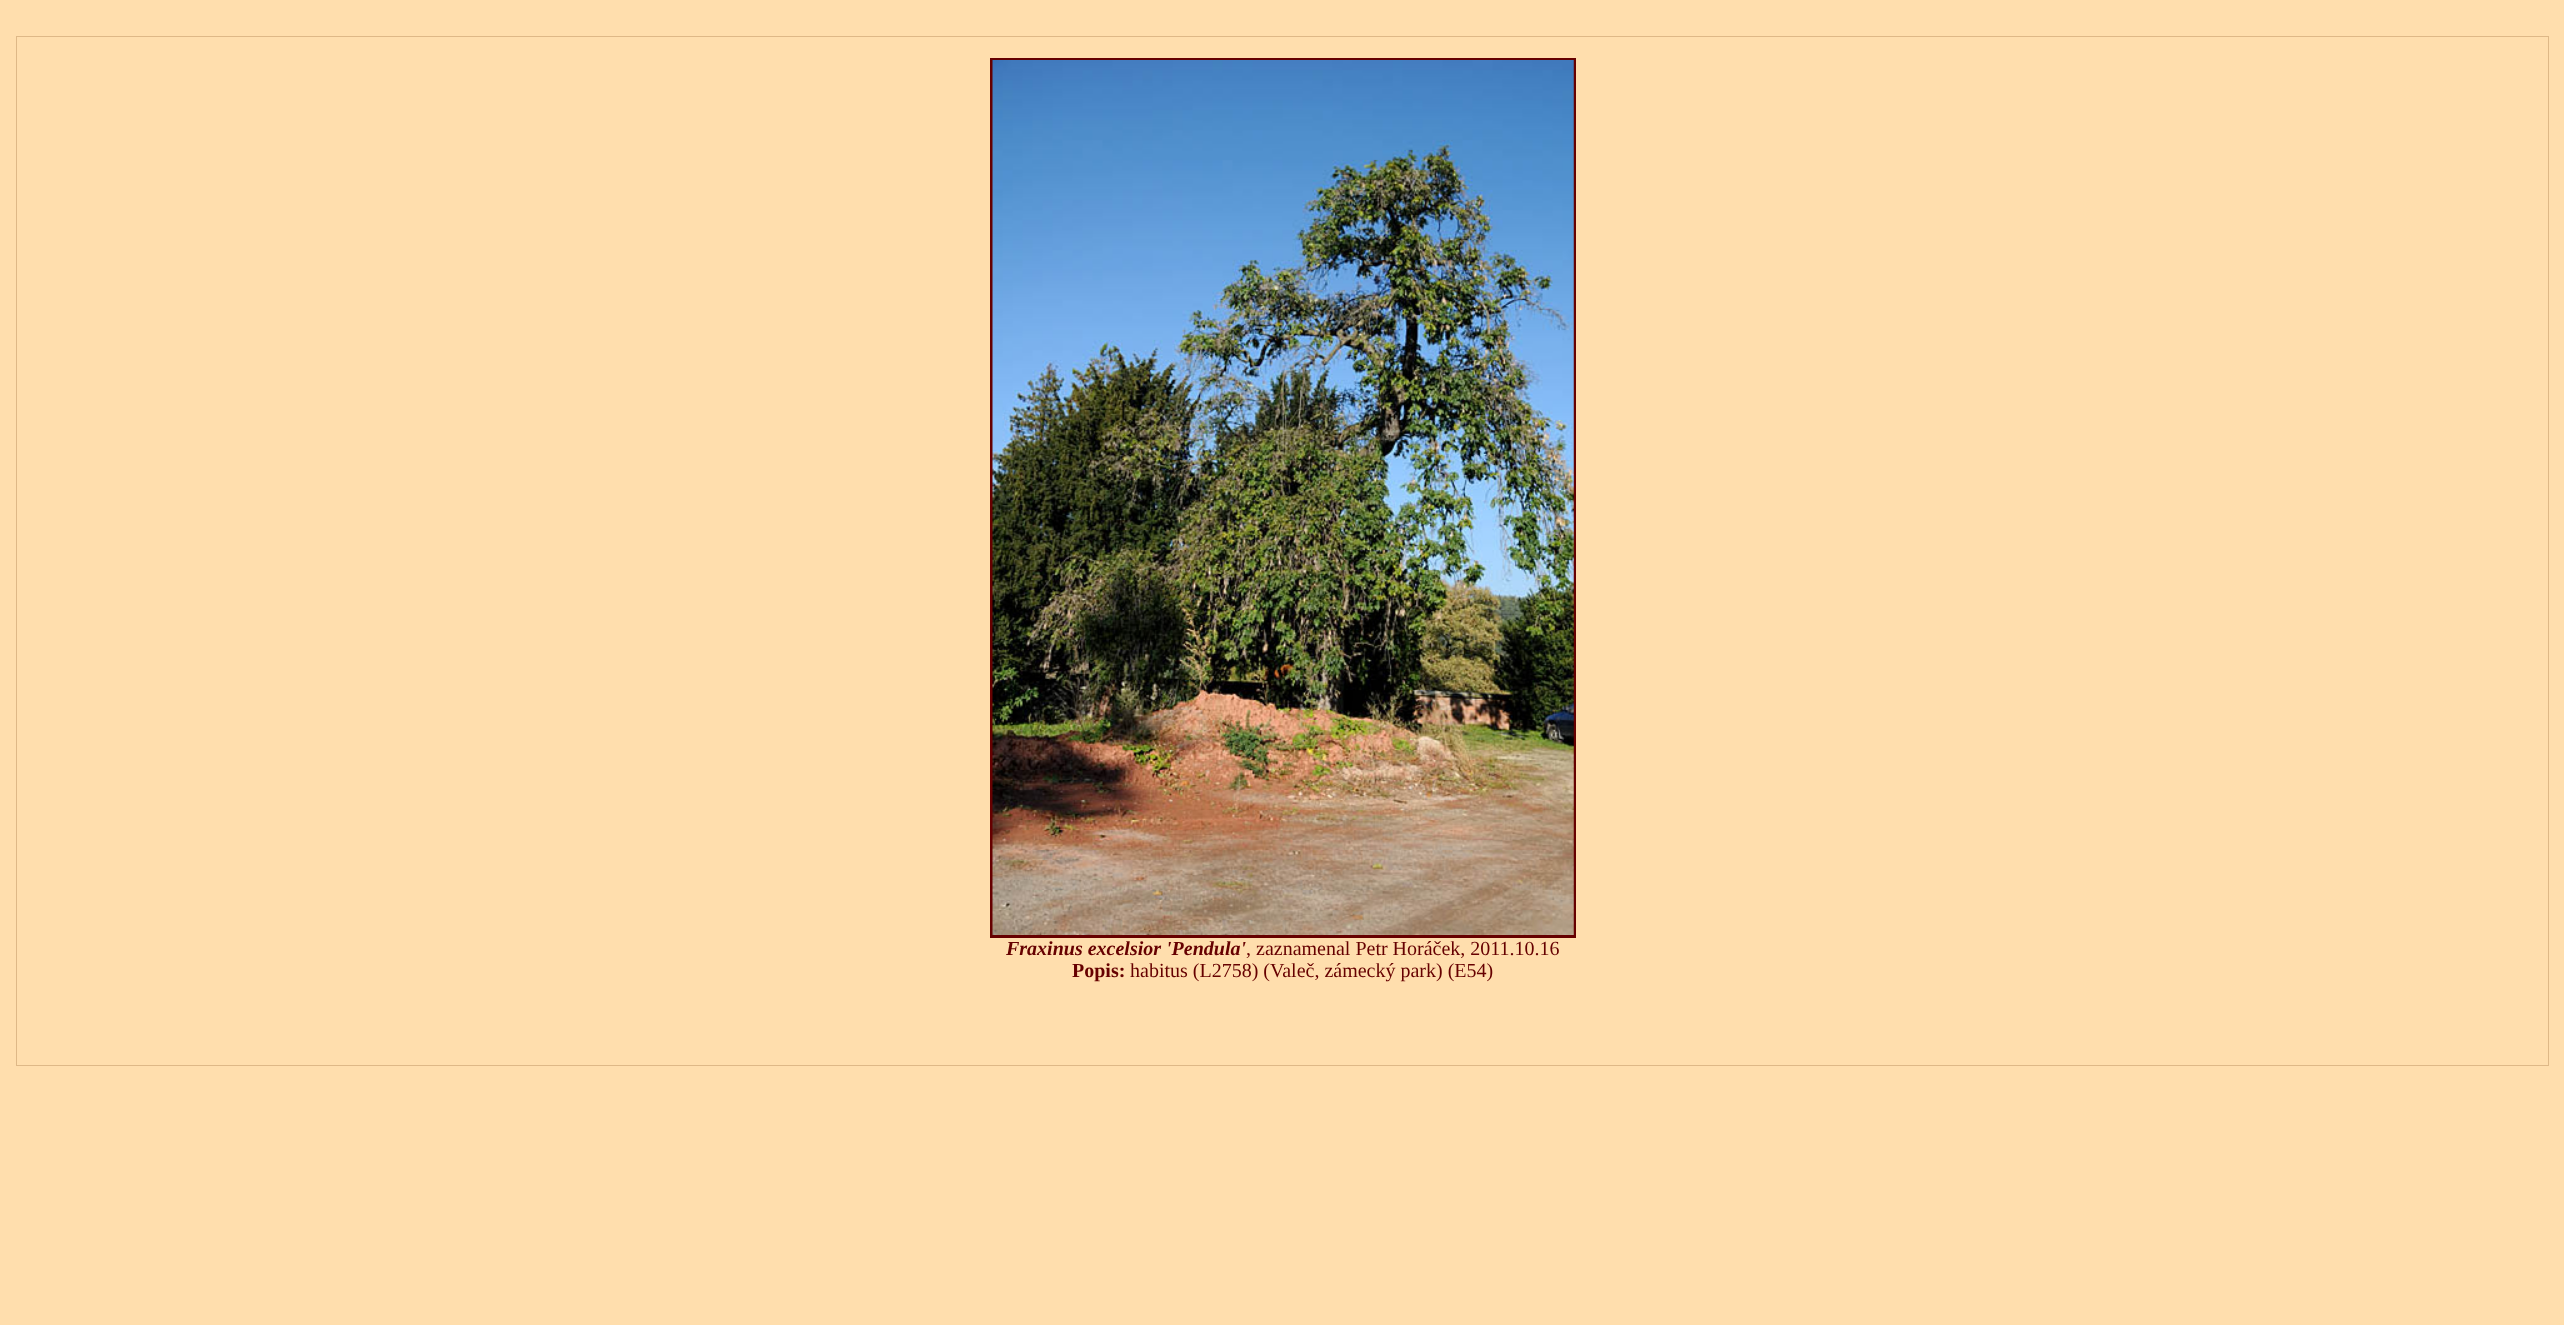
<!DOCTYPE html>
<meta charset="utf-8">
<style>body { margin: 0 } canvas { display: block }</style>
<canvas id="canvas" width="2564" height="1325"></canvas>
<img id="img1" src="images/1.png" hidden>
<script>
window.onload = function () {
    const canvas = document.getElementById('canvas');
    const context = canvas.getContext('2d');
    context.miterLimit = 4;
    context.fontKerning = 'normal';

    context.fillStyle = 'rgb(255, 222, 173)';
    context.fillRect(0, 0, 2564, 1325);
    context.strokeStyle = 'rgb(222, 184, 135)';
    context.strokeRect(16.5, 36.5, 2532, 1029);
    context.strokeStyle = 'rgb(102, 0, 0)';
    context.lineWidth = 3;
    context.strokeRect(991.5, 59.5, 583, 877);
    context.drawImage(document.getElementById('img1'), 992, 60, 582, 875);
    context.font = 'italic bold 20px Liberation Serif';
    context.fillStyle = 'rgb(102, 0, 0)';
    context.fillText('Fraxinus excelsior \'Pendula\'', 1006, 955);
    context.font = '20px Liberation Serif';
    context.fillText(', zaznamenal Petr Horáček, 2011.10.16', 1246, 955);
    context.font = 'bold 20px Liberation Serif';
    context.fillText('Popis:', 1072, 977);
    context.font = '20px Liberation Serif';
    context.fillText('habitus (L2758) (Valeč, zámecký park) (E54)', 1130, 977);
};
</script>
